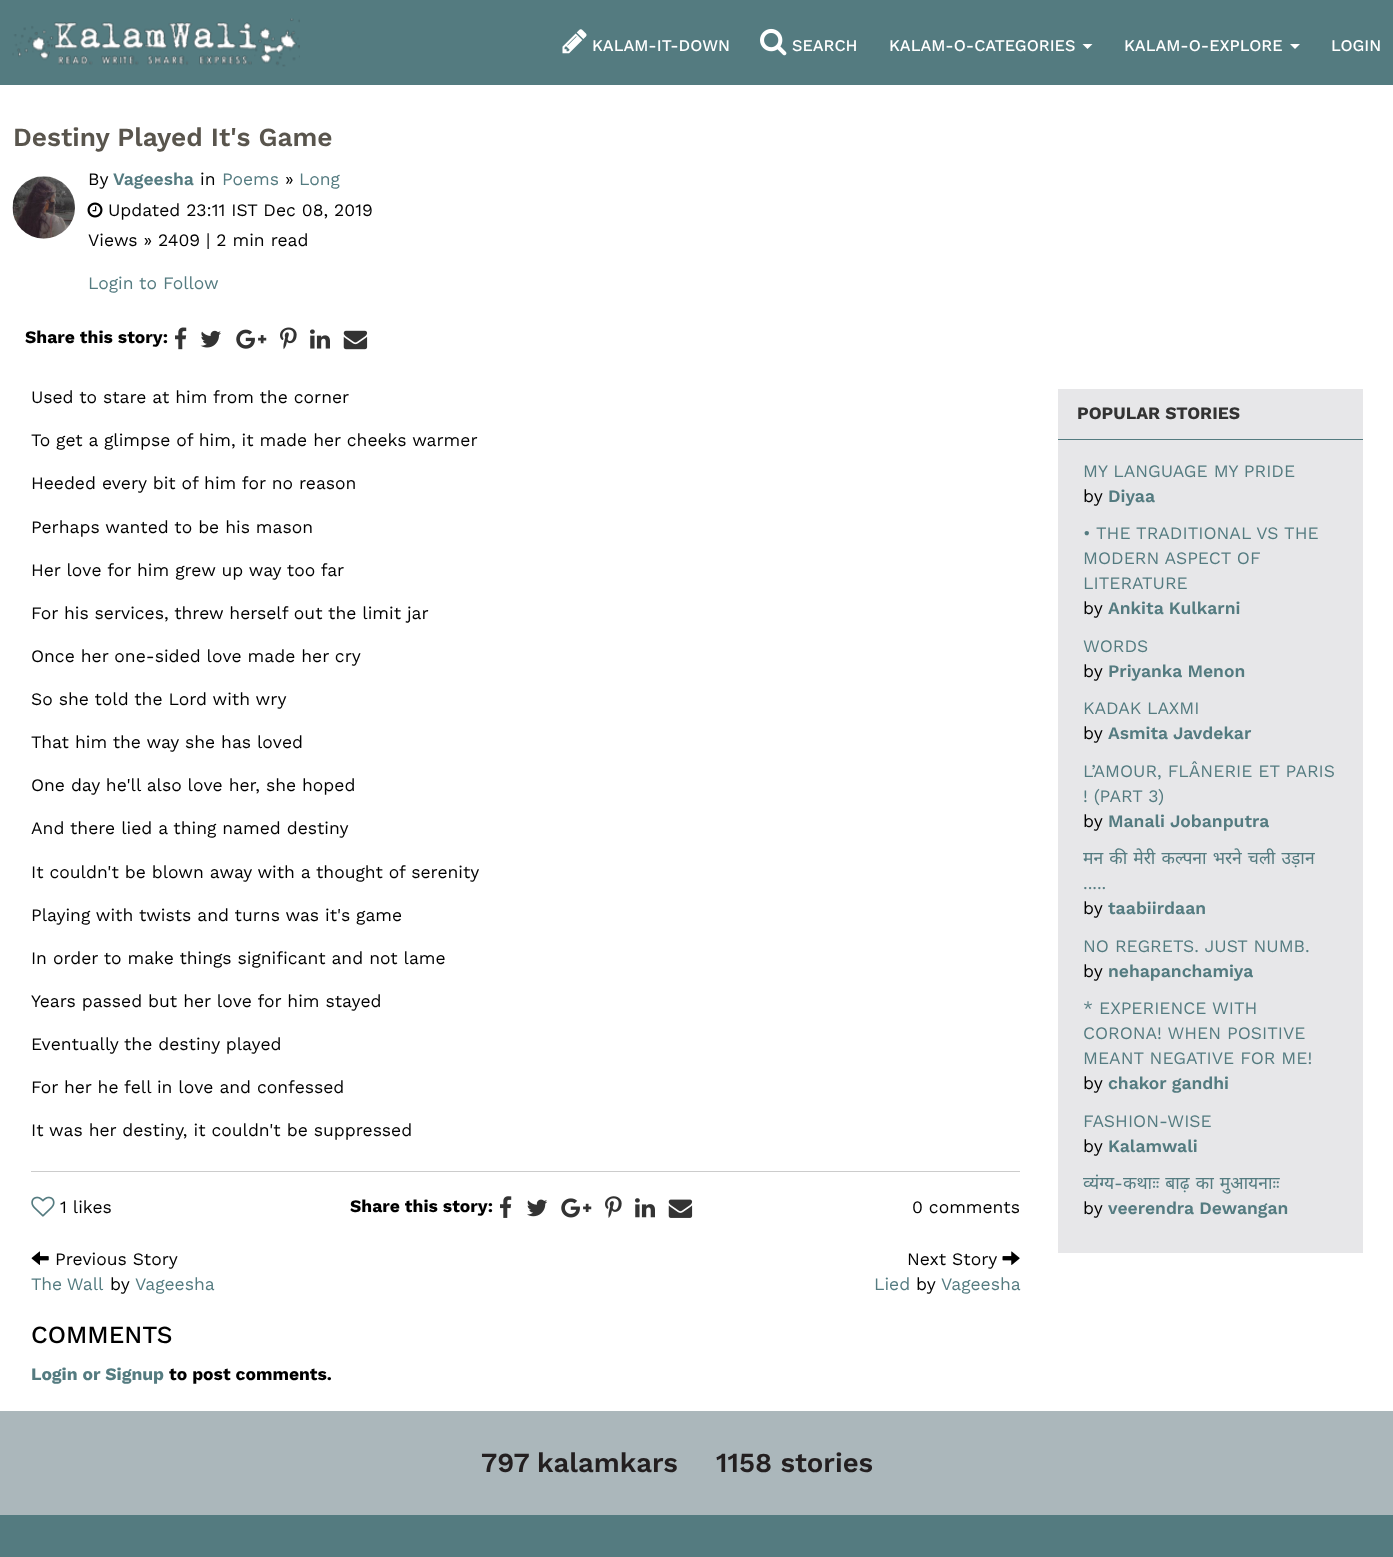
<!DOCTYPE html>
<meta charset="utf-8">
<style>body { margin: 0 } canvas { display: block }</style>
<canvas id="canvas" width="1393" height="1557"></canvas>
<img id="img1" src="images/1.png" hidden>
<img id="img2" src="images/2.png" hidden>
<img id="img3" src="images/3.png" hidden>
<img id="img4" src="images/4.png" hidden>
<img id="img5" src="images/5.png" hidden>
<img id="img6" src="images/6.png" hidden>
<img id="img7" src="images/7.png" hidden>
<img id="img8" src="images/8.png" hidden>
<img id="img9" src="images/9.png" hidden>
<img id="img10" src="images/10.png" hidden>
<img id="img11" src="images/11.png" hidden>
<img id="img12" src="images/12.png" hidden>
<img id="img13" src="images/13.png" hidden>
<img id="img14" src="images/14.png" hidden>
<img id="img15" src="images/15.png" hidden>
<img id="img16" src="images/16.png" hidden>
<img id="img17" src="images/17.png" hidden>
<img id="img18" src="images/18.png" hidden>
<img id="img19" src="images/19.png" hidden>
<img id="img20" src="images/20.png" hidden>
<script>
window.onload = function () {
    const canvas = document.getElementById('canvas');
    const context = canvas.getContext('2d');
    context.miterLimit = 4;
    context.fontKerning = 'normal';

    context.fillStyle = 'rgb(255, 255, 255)';
    context.fillRect(0, 0, 1393, 1557);
    context.fillStyle = 'rgb(84, 123, 128)';
    context.fillRect(0, 0, 1393, 85);
    context.drawImage(document.getElementById('img1'), 12, 18, 288, 49);
    context.drawImage(document.getElementById('img2'), 562, 29, 25, 25);
    context.drawImage(document.getElementById('img3'), 760, 28, 27, 28);
    context.fillStyle = 'rgb(255, 255, 255)';
    context.beginPath();
    context.moveTo(1082.5, 44);
    context.lineTo(1092.5, 44);
    context.lineTo(1087.5, 49);
    context.closePath();
    context.fill();
    context.beginPath();
    context.moveTo(1290, 44);
    context.lineTo(1300, 44);
    context.lineTo(1295, 49);
    context.closePath();
    context.fill();
    context.drawImage(document.getElementById('img4'), 12, 176, 63, 63);
    context.drawImage(document.getElementById('img5'), 87, 202, 16, 16);
    context.drawImage(document.getElementById('img6'), 175, 327, 12, 23);
    context.drawImage(document.getElementById('img7'), 200, 330, 21, 18);
    context.drawImage(document.getElementById('img8'), 236, 329, 31, 20);
    context.drawImage(document.getElementById('img9'), 280, 327, 17, 23);
    context.drawImage(document.getElementById('img10'), 310, 329, 20, 20);
    context.drawImage(document.getElementById('img11'), 343, 330, 25, 20);
    context.fillStyle = 'rgb(204, 204, 204)';
    context.fillRect(31, 1171, 989, 1);
    context.drawImage(document.getElementById('img12'), 31, 1196, 24, 21);
    context.drawImage(document.getElementById('img13'), 500, 1196, 12, 22);
    context.drawImage(document.getElementById('img14'), 527, 1199, 21, 18);
    context.drawImage(document.getElementById('img15'), 561, 1198, 31, 20);
    context.drawImage(document.getElementById('img16'), 605, 1196, 17, 22);
    context.drawImage(document.getElementById('img17'), 635, 1198, 20, 20);
    context.drawImage(document.getElementById('img18'), 668, 1199, 25, 19);
    context.drawImage(document.getElementById('img19'), 31, 1251, 18, 14);
    context.drawImage(document.getElementById('img20'), 1002, 1251, 18, 14);
    context.fillStyle = 'rgb(231, 231, 233)';
    context.fillRect(1058, 389, 305, 864);
    context.fillStyle = 'rgb(84, 123, 128)';
    context.fillRect(1058, 439, 305, 1);
    context.fillStyle = 'rgb(171, 183, 187)';
    context.fillRect(0, 1411, 1393, 104);
    context.fillStyle = 'rgb(84, 123, 128)';
    context.fillRect(0, 1515, 1393, 42);
    context.font = '500 16.25px Work Sans';
    context.fillStyle = 'rgb(255, 255, 255)';
    context.fillText('KALAM-IT-DOWN', 592, 51);
    context.fillText('SEARCH', 792, 51);
    context.fillText('KALAM-O-CATEGORIES', 889, 51);
    context.fillText('KALAM-O-EXPLORE', 1124, 51);
    context.fillText('LOGIN', 1331, 51);
    context.font = '600 26.25px Work Sans';
    context.fillStyle = 'rgb(89, 85, 77)';
    context.fillText('Destiny Played It\'s Game', 13, 146);
    context.font = '17.5px Work Sans';
    context.fillStyle = 'rgb(0, 0, 0)';
    context.fillText('By', 88, 185);
    context.font = '600 17.5px Work Sans';
    context.fillStyle = 'rgb(84, 123, 128)';
    context.fillText('Vageesha', 113, 185);
    context.font = '17.5px Work Sans';
    context.fillStyle = 'rgb(0, 0, 0)';
    context.fillText('in', 200, 185);
    context.fillStyle = 'rgb(84, 123, 128)';
    context.fillText('Poems', 222, 185);
    context.fillStyle = 'rgb(0, 0, 0)';
    context.fillText('»', 285, 185);
    context.fillStyle = 'rgb(84, 123, 128)';
    context.fillText('Long', 299, 185);
    context.fillStyle = 'rgb(0, 0, 0)';
    context.fillText('Updated 23:11 IST Dec 08, 2019', 108, 216);
    context.fillText('Views » 2409 | 2 min read', 88, 246);
    context.fillStyle = 'rgb(84, 123, 128)';
    context.fillText('Login to Follow', 88, 289);
    context.font = 'bold 17.5px Work Sans';
    context.fillStyle = 'rgb(0, 0, 0)';
    context.fillText('Share this story:', 25, 343);
    context.font = '17.5px Work Sans';
    context.fillText('Used to stare at him from the corner', 31, 403);
    context.fillText('To get a glimpse of him, it made her cheeks warmer', 31, 446);
    context.fillText('Heeded every bit of him for no reason', 31, 489);
    context.fillText('Perhaps wanted to be his mason', 31, 533);
    context.fillText('Her love for him grew up way too far', 31, 576);
    context.fillText('For his services, threw herself out the limit jar', 31, 619);
    context.fillText('Once her one-sided love made her cry', 31, 662);
    context.fillText('So she told the Lord with wry', 31, 705);
    context.fillText('That him the way she has loved', 31, 748);
    context.fillText('One day he\'ll also love her, she hoped', 31, 791);
    context.fillText('And there lied a thing named destiny', 31, 834);
    context.fillText('It couldn\'t be blown away with a thought of serenity', 31, 878);
    context.fillText('Playing with twists and turns was it\'s game', 31, 921);
    context.fillText('In order to make things significant and not lame', 31, 964);
    context.fillText('Years passed but her love for him stayed', 31, 1007);
    context.fillText('Eventually the destiny played', 31, 1050);
    context.fillText('For her he fell in love and confessed', 31, 1093);
    context.fillText('It was her destiny, it couldn\'t be suppressed', 31, 1136);
    context.fillText('1 likes', 60, 1213);
    context.font = 'bold 17.5px Work Sans';
    context.fillText('Share this story:', 350, 1212);
    context.font = '17.5px Work Sans';
    context.fillText('0 comments', 912, 1213);
    context.fillText('Previous Story', 55, 1265);
    context.wordSpacing = '-1px';
    context.fillStyle = 'rgb(84, 123, 128)';
    context.fillText('The Wall', 31, 1290);
    context.wordSpacing = '0px';
    context.fillStyle = 'rgb(0, 0, 0)';
    context.fillText('by', 110, 1290);
    context.fillStyle = 'rgb(84, 123, 128)';
    context.fillText('Vageesha', 135, 1290);
    context.fillStyle = 'rgb(0, 0, 0)';
    context.fillText('Next Story', 907, 1265);
    context.fillStyle = 'rgb(84, 123, 128)';
    context.fillText('Lied', 874, 1290);
    context.fillStyle = 'rgb(0, 0, 0)';
    context.fillText('by', 916, 1290);
    context.fillStyle = 'rgb(84, 123, 128)';
    context.fillText('Vageesha', 941, 1290);
    context.font = '500 24.5px Work Sans';
    context.fillStyle = 'rgb(0, 0, 0)';
    context.fillText('COMMENTS', 31, 1343);
    context.font = 'bold 17.5px Work Sans';
    context.fillStyle = 'rgb(84, 123, 128)';
    context.fillText('Login or Signup', 31, 1380);
    context.fillStyle = 'rgb(0, 0, 0)';
    context.fillText('to post comments.', 169, 1380);
    context.fillStyle = 'rgb(51, 51, 51)';
    context.fillText('POPULAR STORIES', 1077, 419);
    context.font = '17.5px Work Sans';
    context.fillStyle = 'rgb(84, 123, 128)';
    context.fillText('MY LANGUAGE MY PRIDE', 1083, 477);
    context.fillStyle = 'rgb(0, 0, 0)';
    context.fillText('by', 1083, 502);
    context.font = '600 17.5px Work Sans';
    context.fillStyle = 'rgb(84, 123, 128)';
    context.fillText('Diyaa', 1108, 502);
    context.font = '17.5px Work Sans';
    context.fillText('• THE TRADITIONAL VS THE', 1083, 539);
    context.fillText('MODERN ASPECT OF', 1083, 564);
    context.fillText('LITERATURE', 1083, 589);
    context.fillStyle = 'rgb(0, 0, 0)';
    context.fillText('by', 1083, 614);
    context.font = '600 17.5px Work Sans';
    context.fillStyle = 'rgb(84, 123, 128)';
    context.fillText('Ankita Kulkarni', 1108, 614);
    context.font = '17.5px Work Sans';
    context.fillText('WORDS', 1083, 652);
    context.fillStyle = 'rgb(0, 0, 0)';
    context.fillText('by', 1083, 677);
    context.font = '600 17.5px Work Sans';
    context.fillStyle = 'rgb(84, 123, 128)';
    context.fillText('Priyanka Menon', 1108, 677);
    context.font = '17.5px Work Sans';
    context.fillText('KADAK LAXMI', 1083, 714);
    context.fillStyle = 'rgb(0, 0, 0)';
    context.fillText('by', 1083, 739);
    context.font = '600 17.5px Work Sans';
    context.fillStyle = 'rgb(84, 123, 128)';
    context.fillText('Asmita Javdekar', 1108, 739);
    context.font = '17.5px Work Sans';
    context.fillText('L’AMOUR, FLÂNERIE ET PARIS', 1083, 777);
    context.fillText('! (PART 3)', 1083, 802);
    context.fillStyle = 'rgb(0, 0, 0)';
    context.fillText('by', 1083, 827);
    context.font = '600 17.5px Work Sans';
    context.fillStyle = 'rgb(84, 123, 128)';
    context.fillText('Manali Jobanputra', 1108, 827);
    context.wordSpacing = '1.5px';
    context.font = '17.5px Noto Sans';
    context.fillText('मन की मेरी कल्पना भरने चली उड़ान', 1083, 864);
    context.wordSpacing = '0px';
    context.font = '17.5px Work Sans';
    context.fillText('.....', 1083, 889);
    context.fillStyle = 'rgb(0, 0, 0)';
    context.fillText('by', 1083, 914);
    context.font = '600 17.5px Work Sans';
    context.fillStyle = 'rgb(84, 123, 128)';
    context.fillText('taabiirdaan', 1108, 914);
    context.font = '17.5px Work Sans';
    context.fillText('NO REGRETS. JUST NUMB.', 1083, 952);
    context.fillStyle = 'rgb(0, 0, 0)';
    context.fillText('by', 1083, 977);
    context.font = '600 17.5px Work Sans';
    context.fillStyle = 'rgb(84, 123, 128)';
    context.fillText('nehapanchamiya', 1108, 977);
    context.font = '17.5px Work Sans';
    context.fillText('* EXPERIENCE WITH', 1083, 1014);
    context.fillText('CORONA! WHEN POSITIVE', 1083, 1039);
    context.fillText('MEANT NEGATIVE FOR ME!', 1083, 1064);
    context.fillStyle = 'rgb(0, 0, 0)';
    context.fillText('by', 1083, 1089);
    context.font = '600 17.5px Work Sans';
    context.fillStyle = 'rgb(84, 123, 128)';
    context.fillText('chakor gandhi', 1108, 1089);
    context.font = '17.5px Work Sans';
    context.fillText('FASHION-WISE', 1083, 1127);
    context.fillStyle = 'rgb(0, 0, 0)';
    context.fillText('by', 1083, 1152);
    context.font = '600 17.5px Work Sans';
    context.fillStyle = 'rgb(84, 123, 128)';
    context.fillText('Kalamwali', 1108, 1152);
    context.font = '17.5px Noto Sans';
    context.fillText('व्यंग्य', 1083, 1189);
    context.font = '17.5px Work Sans';
    context.fillText('-', 1114, 1189);
    context.wordSpacing = '1.5px';
    context.font = '17.5px Noto Sans';
    context.fillText('कथाःः बाढ़ का मुआयनाःः', 1123, 1189);
    context.wordSpacing = '0px';
    context.font = '17.5px Work Sans';
    context.fillStyle = 'rgb(0, 0, 0)';
    context.fillText('by', 1083, 1214);
    context.font = '600 17.5px Work Sans';
    context.fillStyle = 'rgb(84, 123, 128)';
    context.fillText('veerendra Dewangan', 1108, 1214);
    context.font = '600 27.5px Work Sans';
    context.fillStyle = 'rgb(35, 31, 32)';
    context.fillText('797', 481, 1472);
    context.fillText('kalamkars', 537, 1472);
    context.fillText('1158 stories', 716, 1472);
};
</script>
